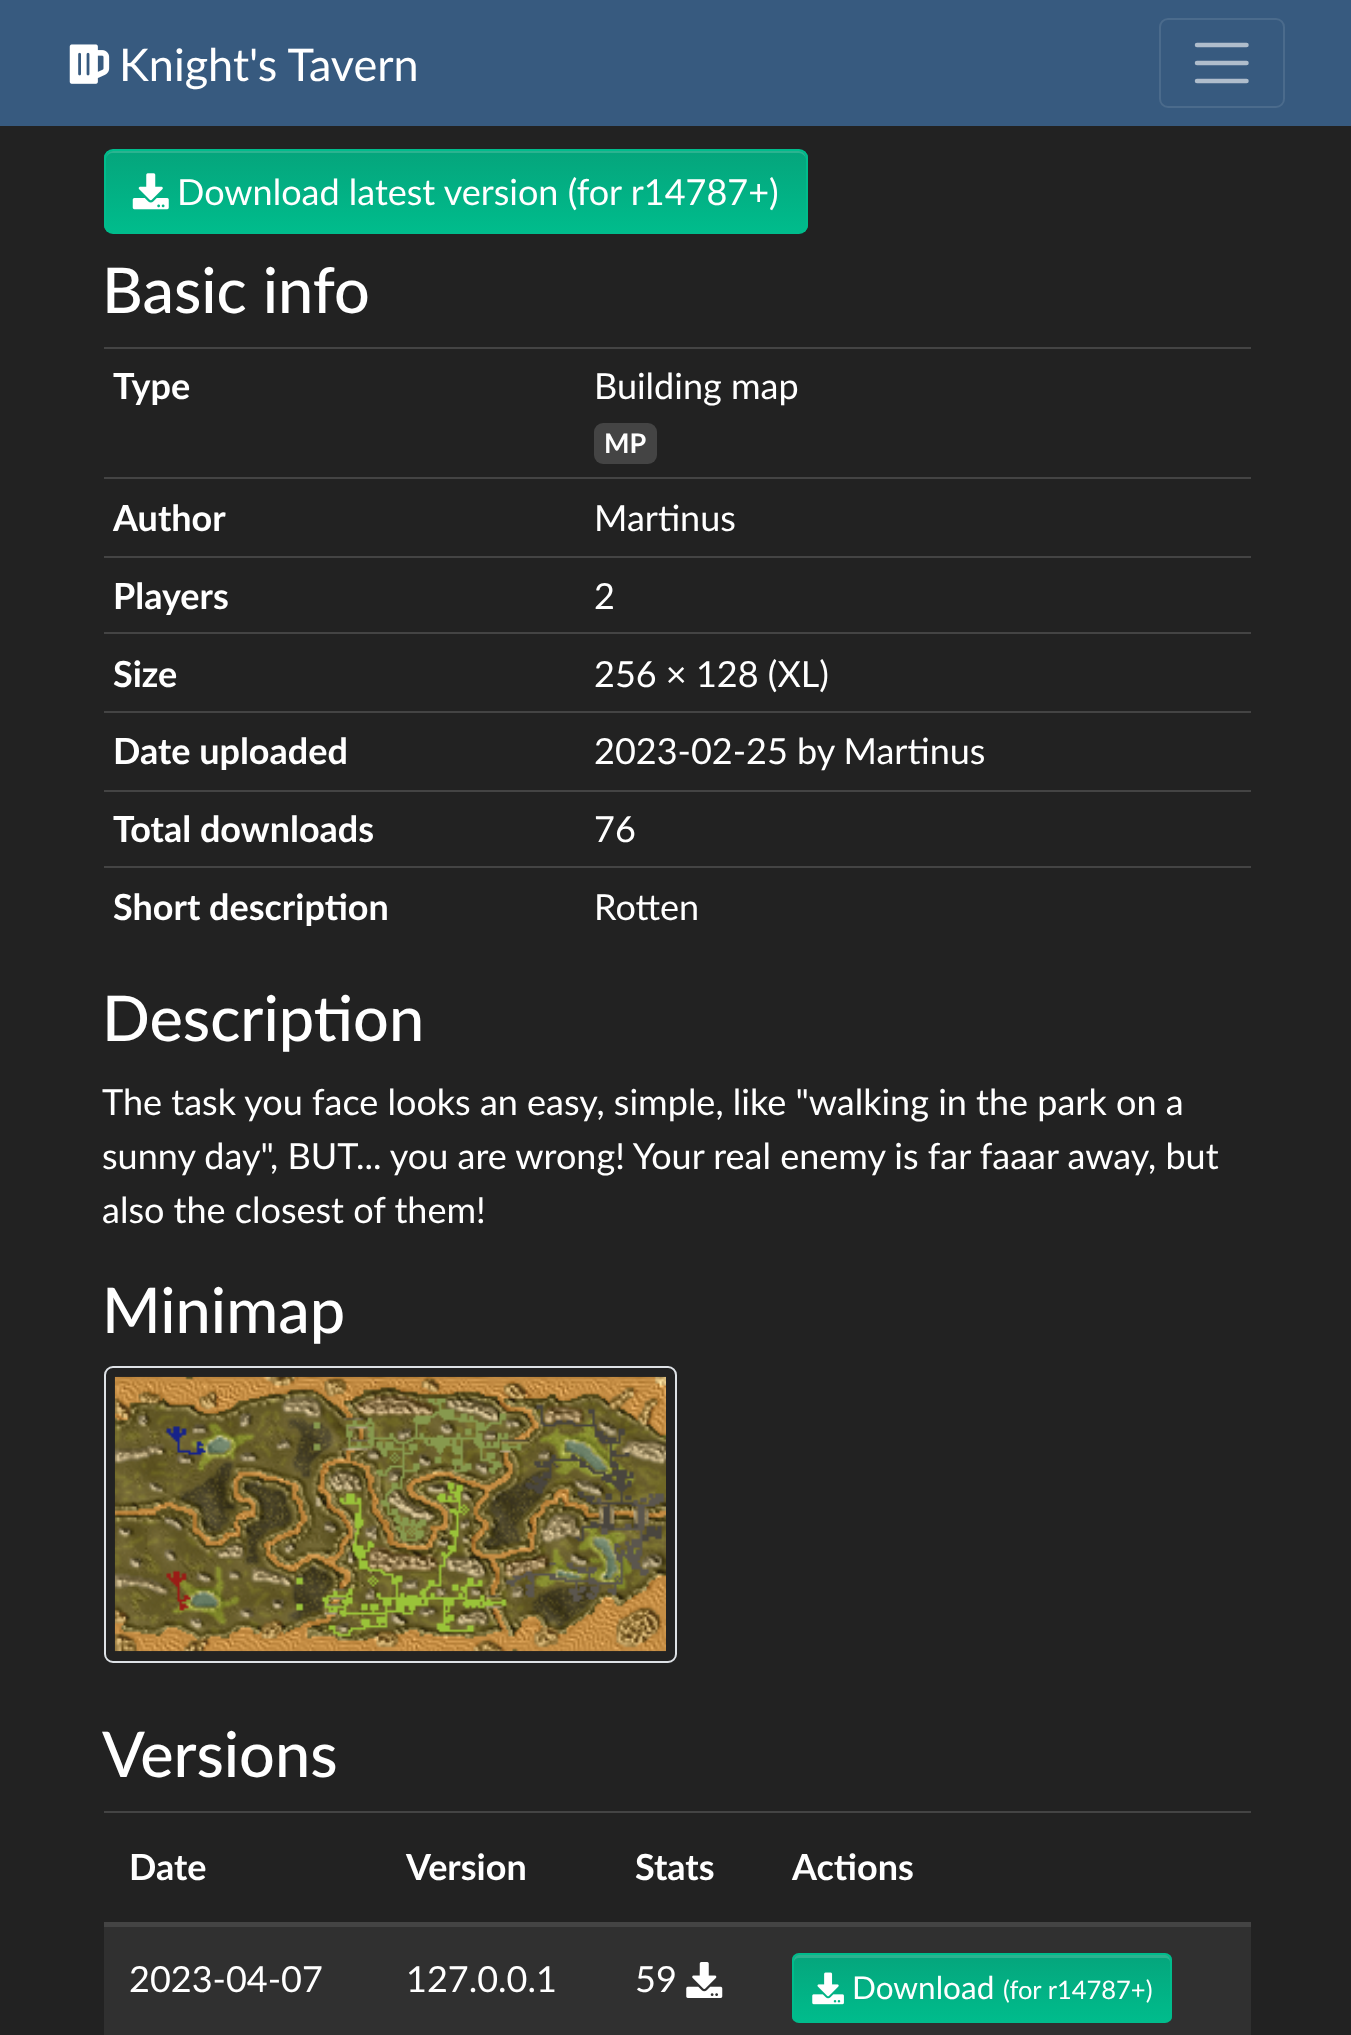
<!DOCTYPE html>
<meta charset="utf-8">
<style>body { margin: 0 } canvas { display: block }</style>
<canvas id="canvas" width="1351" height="2035"></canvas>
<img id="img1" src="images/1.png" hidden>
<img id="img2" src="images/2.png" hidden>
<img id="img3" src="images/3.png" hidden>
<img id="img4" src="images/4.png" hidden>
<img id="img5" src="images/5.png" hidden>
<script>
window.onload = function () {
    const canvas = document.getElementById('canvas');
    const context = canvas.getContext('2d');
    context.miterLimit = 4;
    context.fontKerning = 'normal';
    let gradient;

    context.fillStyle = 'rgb(34, 34, 34)';
    context.fillRect(0, 0, 1351, 2035);
    context.fillStyle = 'rgb(55, 90, 127)';
    context.fillRect(0, 0, 1351, 126);
    context.drawImage(document.getElementById('img1'), 69, 44, 41, 40);
    context.beginPath();
    context.roundRect(1160, 19, 124, 88, 8);
    context.strokeStyle = 'rgb(75, 107, 140)';
    context.lineWidth = 2;
    context.stroke();
    context.beginPath();
    context.moveTo(1197, 45);
    context.lineTo(1246.5, 45);
    context.moveTo(1197, 63);
    context.lineTo(1246.5, 63);
    context.moveTo(1197, 81);
    context.lineTo(1246.5, 81);
    context.strokeStyle = 'rgb(175, 189, 204)';
    context.lineWidth = 4.5;
    context.lineCap = 'round';
    context.stroke();
    context.save();
    context.beginPath();
    context.roundRect(104, 149, 704, 85, 9);
    context.clip();
    gradient = context.createLinearGradient(456, 151, 456, 232);
    gradient.addColorStop(0, 'rgb(5, 165, 124)');
    gradient.addColorStop(1, 'rgb(0, 188, 140)');
    context.fillStyle = gradient;
    context.fillRect(104, 151, 704, 81);
    context.restore();
    context.fillStyle = 'rgb(43, 179, 144)';
    context.beginPath();
    context.moveTo(112, 153);
    context.lineTo(799, 153);
    context.bezierCurveTo(802, 153, 806, 156, 806, 160);
    context.bezierCurveTo(806, 156, 804, 151, 799, 151);
    context.lineTo(113, 151);
    context.bezierCurveTo(108, 151, 106, 156, 106, 160);
    context.bezierCurveTo(106, 156, 109, 153, 112, 153);
    context.closePath();
    context.fill();
    context.beginPath();
    context.roundRect(105, 150, 702, 83, 8);
    context.strokeStyle = 'rgb(0, 188, 140)';
    context.lineWidth = 2;
    context.stroke();
    context.drawImage(document.getElementById('img2'), 132, 173, 37, 37);
    context.fillStyle = 'rgb(68, 68, 68)';
    context.fillRect(104, 347, 1147, 2);
    context.beginPath();
    context.roundRect(594, 423, 63, 41, 9);
    context.fill();
    context.fillRect(104, 477, 1147, 2);
    context.fillRect(104, 556, 1147, 2);
    context.fillRect(104, 632, 1147, 2);
    context.fillRect(104, 711, 1147, 2);
    context.fillRect(104, 790, 1147, 2);
    context.fillRect(104, 866, 1147, 2);
    context.beginPath();
    context.roundRect(105, 1367, 571, 295, 8);
    context.strokeStyle = 'rgb(222, 226, 230)';
    context.stroke();
    context.drawImage(document.getElementById('img3'), 114, 1376, 552, 276);
    context.fillRect(104, 1811, 1147, 2);
    context.fillRect(104, 1922, 1147, 5);
    context.fillStyle = 'rgb(48, 48, 48)';
    context.fillRect(104, 1927, 1147, 108);
    context.drawImage(document.getElementById('img4'), 686, 1962, 37, 36);
    context.save();
    context.beginPath();
    context.roundRect(792, 1953, 380, 70, 7);
    context.clip();
    gradient = context.createLinearGradient(982, 1955, 982, 2021);
    gradient.addColorStop(0, 'rgb(5, 165, 124)');
    gradient.addColorStop(1, 'rgb(0, 188, 140)');
    context.fillStyle = gradient;
    context.fillRect(792, 1955, 380, 66);
    context.restore();
    context.fillStyle = 'rgb(43, 179, 144)';
    context.beginPath();
    context.moveTo(799, 1958);
    context.lineTo(1165, 1958);
    context.bezierCurveTo(1168, 1958, 1170, 1960, 1170, 1962);
    context.lineTo(1170, 1960);
    context.bezierCurveTo(1170, 1957, 1168, 1955, 1165, 1955);
    context.lineTo(799, 1955);
    context.bezierCurveTo(796, 1955, 794, 1957, 794, 1960);
    context.lineTo(794, 1962);
    context.bezierCurveTo(794, 1960, 796, 1958, 799, 1958);
    context.closePath();
    context.fill();
    context.beginPath();
    context.roundRect(793, 1954, 378, 68, 6);
    context.strokeStyle = 'rgb(0, 188, 140)';
    context.stroke();
    context.drawImage(document.getElementById('img5'), 812, 1972, 32, 33);
    context.font = '45px Lato';
    context.fillStyle = 'rgb(255, 255, 255)';
    context.fillText('Knight\'s Tavern', 119, 81);
    context.font = '36px Lato';
    context.fillText('Download latest version (for r14787+)', 177, 205);
    context.font = '500 63px Lato';
    context.fillText('Basic info', 102, 313);
    context.font = 'bold 36px Lato';
    context.fillText('Type', 113, 399);
    context.font = '36px Lato';
    context.fillText('Building map', 594, 399);
    context.font = 'bold 27px Lato';
    context.fillText('MP', 604, 453);
    context.font = 'bold 36px Lato';
    context.fillText('Author', 113, 531);
    context.font = '36px Lato';
    context.fillText('Martinus', 594, 531);
    context.font = 'bold 36px Lato';
    context.fillText('Players', 113, 609);
    context.font = '36px Lato';
    context.fillText('2', 594, 609);
    context.font = 'bold 36px Lato';
    context.fillText('Size', 113, 687);
    context.font = '36px Lato';
    context.fillText('256 × 128 (XL)', 594, 687);
    context.font = 'bold 36px Lato';
    context.fillText('Date uploaded', 113, 764);
    context.font = '36px Lato';
    context.fillText('2023-02-25 by Martinus', 594, 764);
    context.font = 'bold 36px Lato';
    context.fillText('Total downloads', 113, 842);
    context.font = '36px Lato';
    context.fillText('76', 594, 842);
    context.font = 'bold 36px Lato';
    context.fillText('Short description', 113, 920);
    context.font = '36px Lato';
    context.fillText('Rotten', 594, 920);
    context.font = '500 63px Lato';
    context.fillText('Description', 102, 1041);
    context.font = '36px Lato';
    context.fillText('The task you face looks an easy, simple, like "walking in the park on a', 102, 1115);
    context.fillText('sunny day", BUT... you are wrong! Your real enemy is far faaar away, but', 102, 1169);
    context.fillText('also the closest of them!', 102, 1223);
    context.font = '500 63px Lato';
    context.fillText('Minimap', 102, 1333);
    context.fillText('Versions', 102, 1777);
    context.font = 'bold 36px Lato';
    context.fillText('Date', 129, 1880);
    context.fillText('Version', 406, 1880);
    context.fillText('Stats', 635, 1880);
    context.fillText('Actions', 792, 1880);
    context.font = '36px Lato';
    context.fillText('2023-04-07', 129, 1992);
    context.fillText('127.0.0.1', 406, 1992);
    context.fillText('59', 635, 1992);
    context.font = '31.5px Lato';
    context.fillText('Download', 852, 1999);
    context.font = '25.5px Lato';
    context.fillText('(for r14787+)', 1003, 1999);
};
</script>
